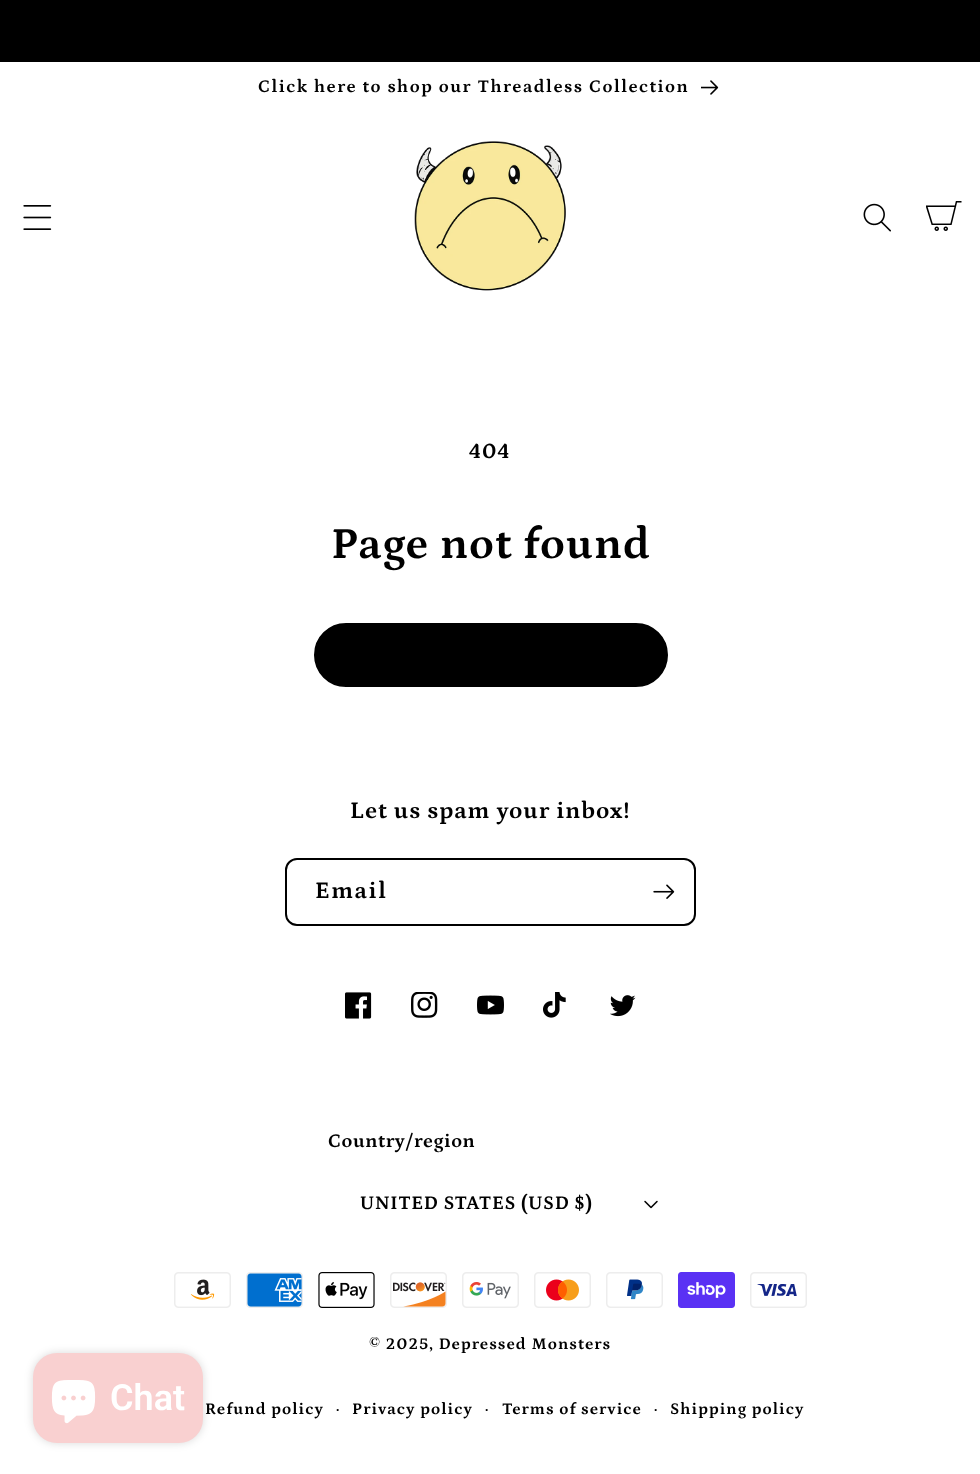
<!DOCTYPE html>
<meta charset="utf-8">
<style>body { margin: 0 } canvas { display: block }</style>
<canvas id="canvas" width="980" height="1474"></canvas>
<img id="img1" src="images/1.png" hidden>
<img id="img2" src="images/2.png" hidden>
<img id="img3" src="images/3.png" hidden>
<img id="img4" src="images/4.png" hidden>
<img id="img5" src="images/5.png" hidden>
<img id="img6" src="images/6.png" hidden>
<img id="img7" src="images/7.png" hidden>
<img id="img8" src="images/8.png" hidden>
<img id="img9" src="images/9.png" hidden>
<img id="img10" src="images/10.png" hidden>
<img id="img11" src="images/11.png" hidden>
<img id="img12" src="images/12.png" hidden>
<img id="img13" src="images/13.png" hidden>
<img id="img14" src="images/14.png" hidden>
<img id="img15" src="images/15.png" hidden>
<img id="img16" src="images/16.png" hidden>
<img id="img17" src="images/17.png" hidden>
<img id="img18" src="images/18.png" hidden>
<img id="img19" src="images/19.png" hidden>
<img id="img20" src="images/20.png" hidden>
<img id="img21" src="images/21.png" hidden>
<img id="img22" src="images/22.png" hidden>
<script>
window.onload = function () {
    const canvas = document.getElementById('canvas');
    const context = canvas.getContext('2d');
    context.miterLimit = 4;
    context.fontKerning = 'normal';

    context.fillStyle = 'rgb(255, 255, 255)';
    context.fillRect(0, 0, 980, 1474);
    context.fillStyle = 'rgb(0, 0, 0)';
    context.fillRect(0, 0, 980, 62);
    context.drawImage(document.getElementById('img1'), 701, 80, 18, 15);
    context.drawImage(document.getElementById('img2'), 23, 205, 29, 25);
    context.drawImage(document.getElementById('img3'), 414, 141, 152, 150);
    context.drawImage(document.getElementById('img4'), 863, 203, 28, 29);
    context.drawImage(document.getElementById('img5'), 926, 201, 36, 30);
    context.beginPath();
    context.roundRect(312.5, 621.5, 357, 67, 33.5);
    context.fill();
    context.strokeStyle = 'rgb(255, 255, 255)';
    context.lineWidth = 3;
    context.stroke();
    context.fillStyle = 'rgba(0, 0, 0, 0.15)';
    context.filter = 'blur(4px)';
    context.beginPath();
    context.roundRect(33, 1353, 170, 90, 24);
    context.fill();
    context.filter = 'none';
    context.fillStyle = 'rgb(249, 208, 208)';
    context.beginPath();
    context.roundRect(33, 1353, 170, 90, 24);
    context.fill();
    context.drawImage(document.getElementById('img6'), 51, 1380, 45, 44);
    context.beginPath();
    context.roundRect(286, 859, 409, 66, 11);
    context.strokeStyle = 'rgb(0, 0, 0)';
    context.lineWidth = 2;
    context.stroke();
    context.drawImage(document.getElementById('img7'), 653, 884, 22, 15);
    context.drawImage(document.getElementById('img8'), 345, 992, 27, 27);
    context.drawImage(document.getElementById('img9'), 411, 992, 27, 26);
    context.drawImage(document.getElementById('img10'), 477, 995, 27, 20);
    context.drawImage(document.getElementById('img11'), 543, 992, 23, 26);
    context.drawImage(document.getElementById('img12'), 610, 995, 26, 22);
    context.drawImage(document.getElementById('img13'), 644, 1200, 14, 9);
    context.drawImage(document.getElementById('img14'), 174, 1272, 57, 36);
    context.drawImage(document.getElementById('img15'), 246, 1272, 57, 36);
    context.drawImage(document.getElementById('img16'), 318, 1272, 57, 36);
    context.drawImage(document.getElementById('img17'), 390, 1272, 57, 36);
    context.drawImage(document.getElementById('img18'), 462, 1272, 57, 36);
    context.drawImage(document.getElementById('img19'), 534, 1272, 57, 36);
    context.drawImage(document.getElementById('img20'), 606, 1272, 57, 36);
    context.drawImage(document.getElementById('img21'), 678, 1272, 57, 36);
    context.drawImage(document.getElementById('img22'), 750, 1272, 57, 36);
    context.letterSpacing = '1.5px';
    context.font = 'bold 18px Petrona';
    context.fillStyle = 'rgb(0, 0, 0)';
    context.fillText('Click here to shop our Threadless Collection', 258, 92);
    context.letterSpacing = '0.9px';
    context.font = 'bold 22px Petrona';
    context.fillText('404', 469, 458);
    context.font = 'bold 45px Petrona';
    context.fillText('Page not found', 331, 558);
    context.letterSpacing = '0px';
    context.font = '600 36px Roboto';
    context.fillStyle = 'rgb(255, 255, 255)';
    context.fillText('Chat', 110, 1410);
    context.letterSpacing = '0.9px';
    context.font = 'bold 24px Petrona';
    context.fillStyle = 'rgb(0, 0, 0)';
    context.fillText('Let us spam your inbox!', 350, 818);
    context.letterSpacing = '1.5px';
    context.fillText('Email', 315, 898);
    context.letterSpacing = '0.6px';
    context.font = 'bold 19.5px Petrona';
    context.fillText('Country/region', 328, 1147);
    context.fillText('UNITED STATES (USD $)', 360, 1209);
    context.letterSpacing = '1.05px';
    context.font = 'bold 16.5px Petrona';
    context.fillText('© 2025, Depressed Monsters', 369, 1349);
    context.fillText('Refund policy', 205, 1414);
    context.font = 'bold 15px Petrona';
    context.fillText('·', 336, 1414);
    context.font = 'bold 16.5px Petrona';
    context.fillText('Privacy policy', 352, 1414);
    context.font = 'bold 15px Petrona';
    context.fillText('·', 485, 1414);
    context.font = 'bold 16.5px Petrona';
    context.fillText('Terms of service', 502, 1414);
    context.font = 'bold 15px Petrona';
    context.fillText('·', 654, 1414);
    context.font = 'bold 16.5px Petrona';
    context.fillText('Shipping policy', 670, 1414);
};
</script>
